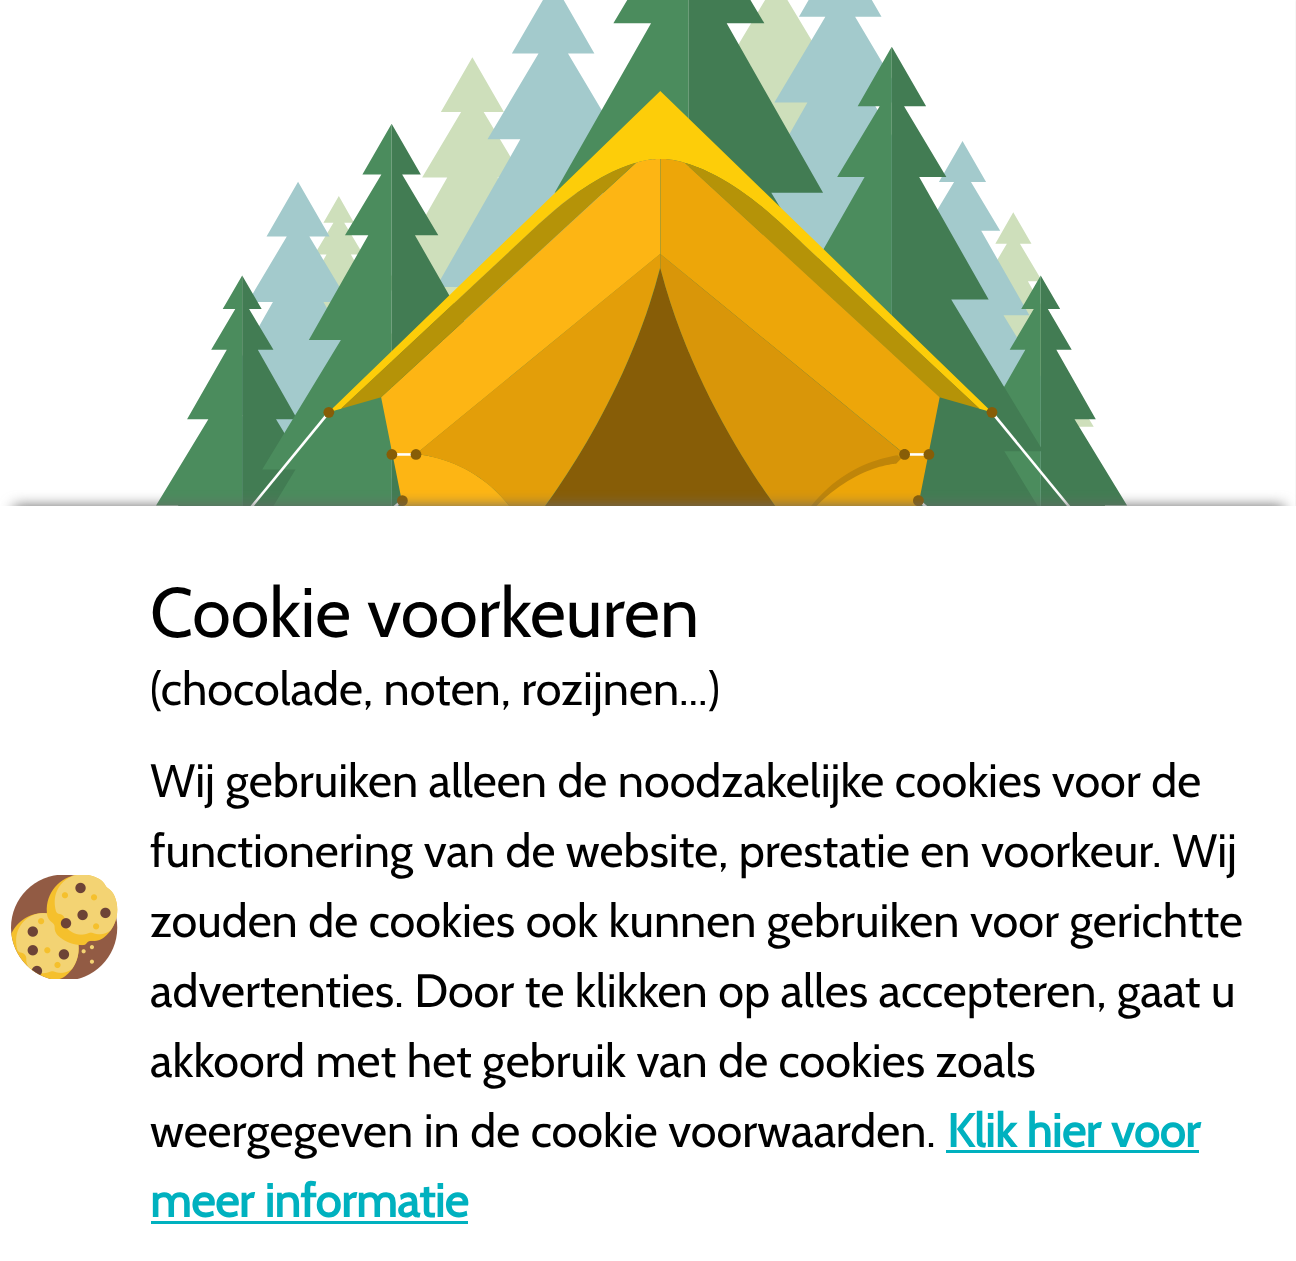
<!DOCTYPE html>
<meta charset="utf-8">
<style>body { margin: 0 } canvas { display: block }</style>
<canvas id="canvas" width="1296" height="1261"></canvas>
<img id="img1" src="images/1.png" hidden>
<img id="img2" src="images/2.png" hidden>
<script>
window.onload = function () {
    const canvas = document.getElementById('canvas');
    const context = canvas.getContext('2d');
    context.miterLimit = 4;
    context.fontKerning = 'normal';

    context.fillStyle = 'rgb(255, 255, 255)';
    context.fillRect(0, 0, 1296, 1261);
    context.drawImage(document.getElementById('img1'), 156, 0, 971, 506);
    context.fillStyle = 'rgb(28, 28, 28)';
    context.filter = 'blur(1.5px)';
    context.beginPath();
    context.rect(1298, 0, 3, 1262);
    context.fill();
    context.filter = 'none';
    context.fillStyle = 'rgb(105, 105, 105)';
    context.filter = 'blur(7px)';
    context.beginPath();
    context.rect(14, 506, 1270, 729);
    context.fill();
    context.filter = 'none';
    context.fillStyle = 'rgb(255, 255, 255)';
    context.fillRect(0, 506, 1296, 755);
    context.drawImage(document.getElementById('img2'), 11, 875, 107, 104);
    context.fillStyle = 'rgb(0, 177, 191)';
    context.fillRect(946, 1150, 253, 3);
    context.fillRect(151, 1221, 317, 3);
    context.font = '70px Cabin';
    context.fillStyle = 'rgb(0, 0, 0)';
    context.fillText('Cookie voorkeuren', 150, 637);
    context.font = '46.75px Cabin';
    context.fillText('(chocolade, noten, rozijnen...)', 150, 705);
    context.fillText('Wij gebruiken alleen de noodzakelijke cookies voor de', 150, 797);
    context.fillText('functionering van de website, prestatie en voorkeur. Wij', 150, 867);
    context.fillText('zouden de cookies ook kunnen gebruiken voor gerichtte', 150, 937);
    context.fillText('advertenties. Door te klikken op alles accepteren, gaat u', 150, 1007);
    context.fillText('akkoord met het gebruik van de cookies zoals', 150, 1077);
    context.fillText('weergegeven in de cookie voorwaarden.', 150, 1147);
    context.font = 'bold 46.75px Cabin';
    context.fillStyle = 'rgb(0, 177, 191)';
    context.fillText('Klik hier voor', 947, 1147);
    context.fillText('meer informatie', 150, 1217);
};
</script>
